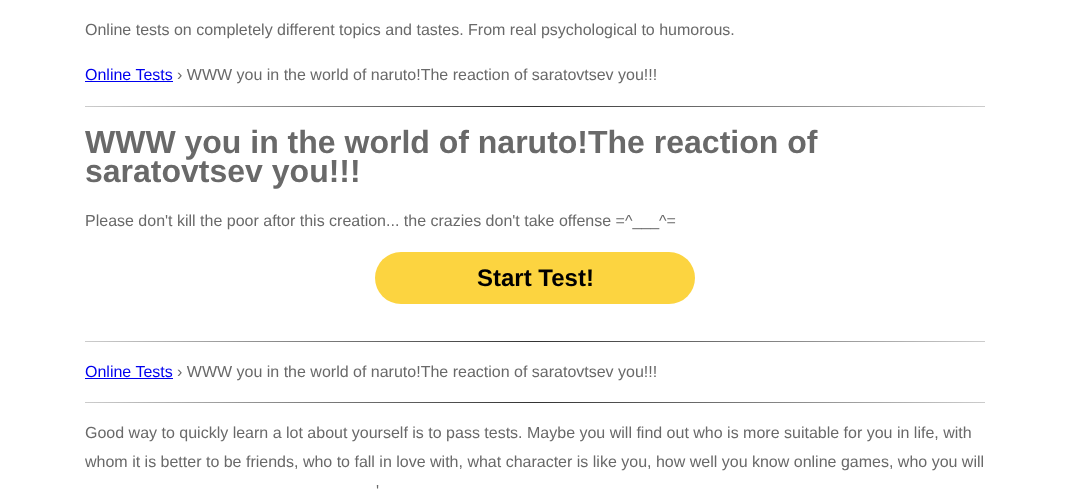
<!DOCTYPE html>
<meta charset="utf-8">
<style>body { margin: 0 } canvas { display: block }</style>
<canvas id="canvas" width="1070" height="490"></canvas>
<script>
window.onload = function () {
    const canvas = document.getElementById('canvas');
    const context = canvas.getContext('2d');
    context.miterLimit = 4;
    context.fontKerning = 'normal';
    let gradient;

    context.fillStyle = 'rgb(255, 255, 255)';
    context.fillRect(0, 0, 1070, 490);
    context.fillStyle = 'rgb(0, 0, 238)';
    context.fillRect(85, 81, 88, 1);
    gradient = context.createLinearGradient(85, 107, 985, 106);
    gradient.addColorStop(0, 'rgb(204, 204, 204)');
    gradient.addColorStop(0.5, 'rgb(51, 51, 51)');
    gradient.addColorStop(1, 'rgb(204, 204, 204)');
    context.fillStyle = gradient;
    context.fillRect(85, 106, 900, 1);
    context.fillStyle = 'rgb(252, 212, 64)';
    context.beginPath();
    context.roundRect(375, 252, 320, 52, 26);
    context.fill();
    gradient = context.createLinearGradient(85, 342, 985, 342);
    gradient.addColorStop(0, 'rgb(204, 204, 204)');
    gradient.addColorStop(0.5, 'rgb(51, 51, 51)');
    gradient.addColorStop(1, 'rgb(204, 204, 204)');
    context.fillStyle = gradient;
    context.fillRect(85, 341, 900, 1);
    context.fillStyle = 'rgb(0, 0, 238)';
    context.fillRect(85, 378, 88, 1);
    gradient = context.createLinearGradient(85, 403, 985, 403);
    gradient.addColorStop(0, 'rgb(204, 204, 204)');
    gradient.addColorStop(0.5, 'rgb(51, 51, 51)');
    gradient.addColorStop(1, 'rgb(204, 204, 204)');
    context.fillStyle = gradient;
    context.fillRect(85, 402, 900, 1);
    context.font = '16px Liberation Sans';
    context.fillStyle = 'rgb(105, 105, 105)';
    context.fillText('Online tests on completely different topics and tastes. From real psychological to humorous.', 85, 35);
    context.fillStyle = 'rgb(0, 0, 238)';
    context.fillText('Online Tests', 85, 80);
    context.fillStyle = 'rgb(105, 105, 105)';
    context.fillText('› WWW you in the world of naruto!The reaction of saratovtsev you!!!', 177, 80);
    context.font = 'bold 32px Liberation Sans';
    context.fillText('WWW you in the world of naruto!The reaction of', 85, 153);
    context.fillText('saratovtsev you!!!', 85, 182);
    context.font = '16px Liberation Sans';
    context.fillText('Please don\'t kill the poor aftor this creation... the crazies don\'t take offense =^___^=', 85, 226);
    context.font = 'bold 24px Liberation Sans';
    context.fillStyle = 'rgb(0, 0, 0)';
    context.fillText('Start Test!', 477, 286);
    context.font = '16px Liberation Sans';
    context.fillStyle = 'rgb(0, 0, 238)';
    context.fillText('Online Tests', 85, 377);
    context.fillStyle = 'rgb(105, 105, 105)';
    context.fillText('› WWW you in the world of naruto!The reaction of saratovtsev you!!!', 177, 377);
    context.fillText('Good way to quickly learn a lot about yourself is to pass tests. Maybe you will find out who is more suitable for you in life, with', 85, 438);
    context.fillText('whom it is better to be friends, who to fall in love with, what character is like you, how well you know online games, who you will', 85, 467);
    context.fillText('\'', 376, 496);
};
</script>
